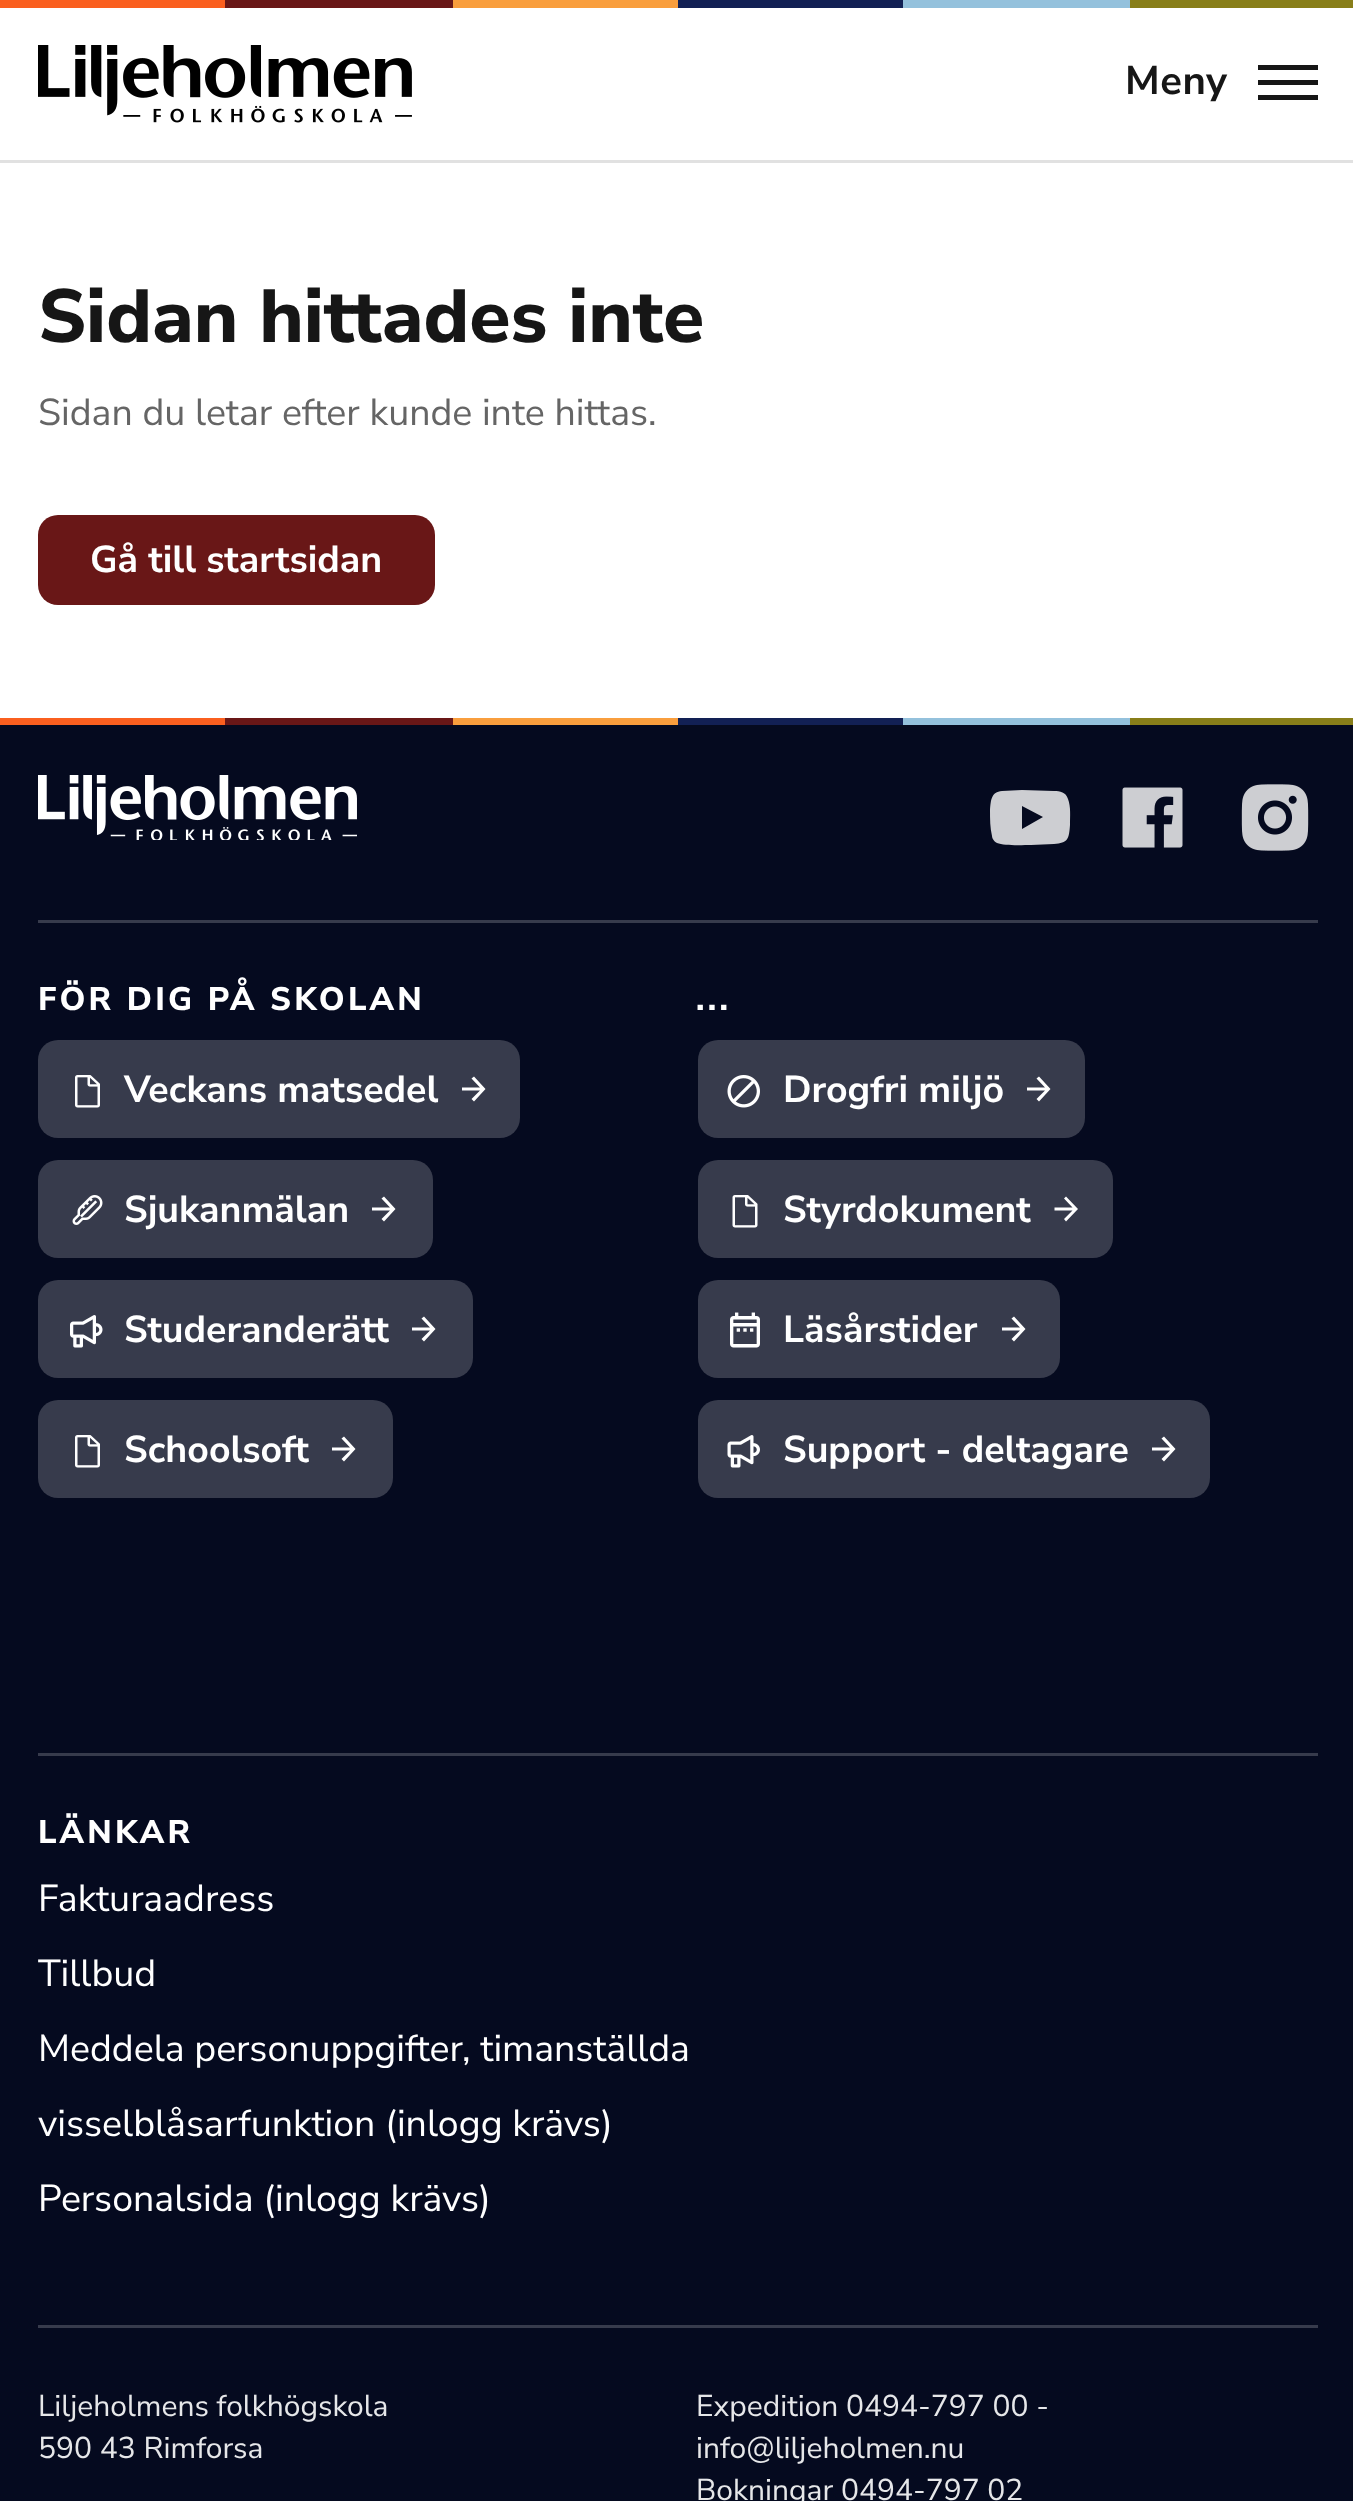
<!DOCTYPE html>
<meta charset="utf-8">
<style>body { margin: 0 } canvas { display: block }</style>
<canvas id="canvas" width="1353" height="2501"></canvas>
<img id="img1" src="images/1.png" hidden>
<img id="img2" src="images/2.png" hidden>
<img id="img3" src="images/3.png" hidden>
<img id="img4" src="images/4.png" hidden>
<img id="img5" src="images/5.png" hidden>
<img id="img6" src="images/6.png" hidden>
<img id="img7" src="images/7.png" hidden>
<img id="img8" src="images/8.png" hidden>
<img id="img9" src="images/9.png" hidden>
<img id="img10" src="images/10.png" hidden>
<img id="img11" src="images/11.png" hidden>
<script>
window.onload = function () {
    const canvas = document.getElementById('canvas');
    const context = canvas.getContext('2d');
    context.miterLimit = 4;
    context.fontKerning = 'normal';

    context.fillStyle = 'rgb(255, 255, 255)';
    context.fillRect(0, 0, 1353, 2501);
    context.fillStyle = 'rgb(250, 95, 31)';
    context.fillRect(0, 0, 225, 8);
    context.fillStyle = 'rgb(105, 23, 23)';
    context.fillRect(225, 0, 228, 8);
    context.fillStyle = 'rgb(249, 158, 61)';
    context.fillRect(453, 0, 225, 8);
    context.fillStyle = 'rgb(18, 32, 84)';
    context.fillRect(678, 0, 225, 8);
    context.fillStyle = 'rgb(148, 193, 220)';
    context.fillRect(903, 0, 227, 8);
    context.fillStyle = 'rgb(136, 126, 25)';
    context.fillRect(1130, 0, 223, 8);
    context.drawImage(document.getElementById('img1'), 38, 45, 374, 78);
    context.fillStyle = 'rgb(22, 22, 22)';
    context.fillRect(1258, 65, 60, 5);
    context.fillRect(1258, 80, 60, 5);
    context.fillRect(1258, 95, 60, 5);
    context.fillStyle = 'rgb(225, 225, 225)';
    context.fillRect(0, 160, 1353, 3);
    context.fillStyle = 'rgb(105, 23, 23)';
    context.beginPath();
    context.roundRect(38, 515, 397, 90, 20);
    context.fill();
    context.fillStyle = 'rgb(250, 95, 31)';
    context.fillRect(0, 718, 225, 7);
    context.fillStyle = 'rgb(105, 23, 23)';
    context.fillRect(225, 718, 228, 7);
    context.fillStyle = 'rgb(249, 158, 61)';
    context.fillRect(453, 718, 225, 7);
    context.fillStyle = 'rgb(18, 32, 84)';
    context.fillRect(678, 718, 225, 7);
    context.fillStyle = 'rgb(148, 193, 220)';
    context.fillRect(903, 718, 227, 7);
    context.fillStyle = 'rgb(136, 126, 25)';
    context.fillRect(1130, 718, 223, 7);
    context.fillStyle = 'rgb(5, 10, 31)';
    context.fillRect(0, 725, 1353, 1776);
    context.drawImage(document.getElementById('img2'), 38, 775, 319, 65);
    context.fillStyle = 'rgb(205, 206, 210)';
    context.beginPath();
    context.moveTo(1068, 799);
    context.bezierCurveTo(1066, 792, 1060, 791, 1054, 791);
    context.lineTo(1022, 790);
    context.lineTo(1002, 791);
    context.bezierCurveTo(991, 792, 991, 800, 990, 810);
    context.bezierCurveTo(990, 819, 990, 828, 992, 836);
    context.bezierCurveTo(992, 839, 995, 842, 997, 843);
    context.bezierCurveTo(1004, 846, 1023, 845, 1031, 845);
    context.lineTo(1054, 844);
    context.bezierCurveTo(1068, 843, 1069, 839, 1070, 825);
    context.bezierCurveTo(1070, 816, 1071, 807, 1068, 799);
    context.closePath();
    context.moveTo(1022, 829);
    context.lineTo(1022, 806);
    context.lineTo(1043, 817);
    context.closePath();
    context.fill();
    context.drawImage(document.getElementById('img3'), 1122, 787, 61, 61);
    context.drawImage(document.getElementById('img4'), 1241, 784, 68, 67);
    context.fillStyle = 'rgb(55, 59, 76)';
    context.fillRect(38, 920, 1280, 3);
    context.beginPath();
    context.roundRect(38, 1040, 482, 98, 20);
    context.fill();
    context.drawImage(document.getElementById('img5'), 75, 1075, 25, 33);
    context.fillStyle = 'rgb(255, 255, 255)';
    context.beginPath();
    context.moveTo(462, 1090.5);
    context.lineTo(480, 1090.5);
    context.lineTo(471.5, 1099);
    context.lineTo(474, 1101.5);
    context.lineTo(485.5, 1089);
    context.lineTo(474, 1076.5);
    context.lineTo(471.5, 1078.5);
    context.lineTo(480, 1087.5);
    context.lineTo(462, 1087.5);
    context.closePath();
    context.fill();
    context.fillStyle = 'rgb(55, 59, 76)';
    context.beginPath();
    context.roundRect(38, 1160, 395, 98, 20);
    context.fill();
    context.drawImage(document.getElementById('img6'), 72, 1195, 31, 30);
    context.fillStyle = 'rgb(255, 255, 255)';
    context.beginPath();
    context.moveTo(372, 1210.5);
    context.lineTo(390, 1210.5);
    context.lineTo(381.5, 1219);
    context.lineTo(384, 1221.5);
    context.lineTo(395.5, 1209);
    context.lineTo(384, 1196.5);
    context.lineTo(381.5, 1198.5);
    context.lineTo(390, 1207.5);
    context.lineTo(372, 1207.5);
    context.closePath();
    context.fill();
    context.fillStyle = 'rgb(55, 59, 76)';
    context.beginPath();
    context.roundRect(38, 1280, 435, 98, 20);
    context.fill();
    context.drawImage(document.getElementById('img7'), 70, 1315, 33, 33);
    context.fillStyle = 'rgb(255, 255, 255)';
    context.beginPath();
    context.moveTo(412, 1330.5);
    context.lineTo(430, 1330.5);
    context.lineTo(421.5, 1339);
    context.lineTo(424, 1341.5);
    context.lineTo(435.5, 1329);
    context.lineTo(424, 1316.5);
    context.lineTo(421.5, 1318.5);
    context.lineTo(430, 1327.5);
    context.lineTo(412, 1327.5);
    context.closePath();
    context.fill();
    context.fillStyle = 'rgb(55, 59, 76)';
    context.beginPath();
    context.roundRect(38, 1400, 355, 98, 20);
    context.fill();
    context.drawImage(document.getElementById('img5'), 75, 1435, 25, 33);
    context.fillStyle = 'rgb(255, 255, 255)';
    context.beginPath();
    context.moveTo(332, 1450.5);
    context.lineTo(350, 1450.5);
    context.lineTo(341.5, 1459);
    context.lineTo(344, 1461.5);
    context.lineTo(355.5, 1449);
    context.lineTo(344, 1436.5);
    context.lineTo(341.5, 1438.5);
    context.lineTo(350, 1447.5);
    context.lineTo(332, 1447.5);
    context.closePath();
    context.fill();
    context.fillStyle = 'rgb(55, 59, 76)';
    context.beginPath();
    context.roundRect(698, 1040, 387, 98, 20);
    context.fill();
    context.drawImage(document.getElementById('img8'), 727, 1075, 33, 33);
    context.fillStyle = 'rgb(255, 255, 255)';
    context.beginPath();
    context.moveTo(1027, 1090.5);
    context.lineTo(1045, 1090.5);
    context.lineTo(1036.5, 1099);
    context.lineTo(1039, 1101.5);
    context.lineTo(1050.5, 1089);
    context.lineTo(1039, 1076.5);
    context.lineTo(1036.5, 1078.5);
    context.lineTo(1045, 1087.5);
    context.lineTo(1027, 1087.5);
    context.closePath();
    context.fill();
    context.fillStyle = 'rgb(55, 59, 76)';
    context.beginPath();
    context.roundRect(698, 1160, 415, 98, 20);
    context.fill();
    context.drawImage(document.getElementById('img9'), 732, 1195, 26, 33);
    context.fillStyle = 'rgb(255, 255, 255)';
    context.beginPath();
    context.moveTo(1054.5, 1210.5);
    context.lineTo(1072.5, 1210.5);
    context.lineTo(1064, 1219);
    context.lineTo(1066, 1221.5);
    context.lineTo(1078, 1209);
    context.lineTo(1066, 1196.5);
    context.lineTo(1064, 1198.5);
    context.lineTo(1072.5, 1207.5);
    context.lineTo(1054.5, 1207.5);
    context.closePath();
    context.fill();
    context.fillStyle = 'rgb(55, 59, 76)';
    context.beginPath();
    context.roundRect(698, 1280, 362, 98, 20);
    context.fill();
    context.drawImage(document.getElementById('img10'), 730, 1312, 30, 36);
    context.fillStyle = 'rgb(255, 255, 255)';
    context.beginPath();
    context.moveTo(1002, 1330.5);
    context.lineTo(1020, 1330.5);
    context.lineTo(1011.5, 1339);
    context.lineTo(1014, 1341.5);
    context.lineTo(1025.5, 1329);
    context.lineTo(1014, 1316.5);
    context.lineTo(1011.5, 1318.5);
    context.lineTo(1020, 1327.5);
    context.lineTo(1002, 1327.5);
    context.closePath();
    context.fill();
    context.fillStyle = 'rgb(55, 59, 76)';
    context.beginPath();
    context.roundRect(698, 1400, 512, 98, 20);
    context.fill();
    context.drawImage(document.getElementById('img11'), 727, 1435, 33, 33);
    context.fillStyle = 'rgb(255, 255, 255)';
    context.beginPath();
    context.moveTo(1152, 1450.5);
    context.lineTo(1170, 1450.5);
    context.lineTo(1161.5, 1459);
    context.lineTo(1164, 1461.5);
    context.lineTo(1175.5, 1449);
    context.lineTo(1164, 1436.5);
    context.lineTo(1161.5, 1438.5);
    context.lineTo(1170, 1447.5);
    context.lineTo(1152, 1447.5);
    context.closePath();
    context.fill();
    context.fillStyle = 'rgb(55, 59, 76)';
    context.fillRect(38, 1753, 1280, 3);
    context.fillRect(38, 2325, 1280, 3);
    context.letterSpacing = '0.5px';
    context.font = 'bold 40px Nunito Sans';
    context.fillStyle = 'rgb(22, 22, 22)';
    context.fillText('Meny', 1125, 94);
    context.letterSpacing = '0px';
    context.font = '800 75px Nunito Sans';
    context.fillText('Sidan hittades inte', 38, 342);
    context.font = '37.5px Nunito Sans';
    context.fillStyle = 'rgb(101, 101, 101)';
    context.fillText('Sidan du letar efter kunde inte hittas.', 38, 425);
    context.font = 'bold 37.5px Nunito Sans';
    context.fillStyle = 'rgb(255, 255, 255)';
    context.fillText('Gå till startsidan', 90, 572);
    context.letterSpacing = '3.25px';
    context.font = '800 32.5px Nunito Sans';
    context.fillText('FÖR DIG PÅ SKOLAN', 38, 1010);
    context.letterSpacing = '0px';
    context.font = 'bold 37.5px Nunito Sans';
    context.fillText('Veckans matsedel', 124, 1102);
    context.fillText('Sjukanmälan', 124, 1222);
    context.fillText('Studeranderätt', 124, 1342);
    context.fillText('Schoolsoft', 124, 1462);
    context.letterSpacing = '3.25px';
    context.font = '800 32.5px Nunito Sans';
    context.fillText('...', 696, 1010);
    context.letterSpacing = '0px';
    context.font = 'bold 37.5px Nunito Sans';
    context.fillText('Drogfri miljö', 783, 1102);
    context.fillText('Styrdokument', 783, 1222);
    context.fillText('Läsårstider', 783, 1342);
    context.fillText('Support - deltagare', 783, 1462);
    context.letterSpacing = '3.25px';
    context.font = '800 32.5px Nunito Sans';
    context.fillText('LÄNKAR', 38, 1843);
    context.letterSpacing = '0px';
    context.font = '37.5px Nunito Sans';
    context.fillText('Fakturaadress', 38, 1911);
    context.fillText('Tillbud', 38, 1986);
    context.fillText('Meddela personuppgifter, timanställda', 38, 2061);
    context.fillText('visselblåsarfunktion (inlogg krävs)', 38, 2136);
    context.fillText('Personalsida (inlogg krävs)', 38, 2211);
    context.font = '30px Nunito Sans';
    context.fillStyle = 'rgb(230, 231, 233)';
    context.fillText('Liljeholmens folkhögskola', 38, 2416);
    context.fillText('590 43 Rimforsa', 38, 2458);
    context.fillText('Expedition 0494-797 00 -', 696, 2416);
    context.fillText('info@liljeholmen.nu', 696, 2458);
    context.fillText('Bokningar 0494-797 02', 696, 2500);
};
</script>
